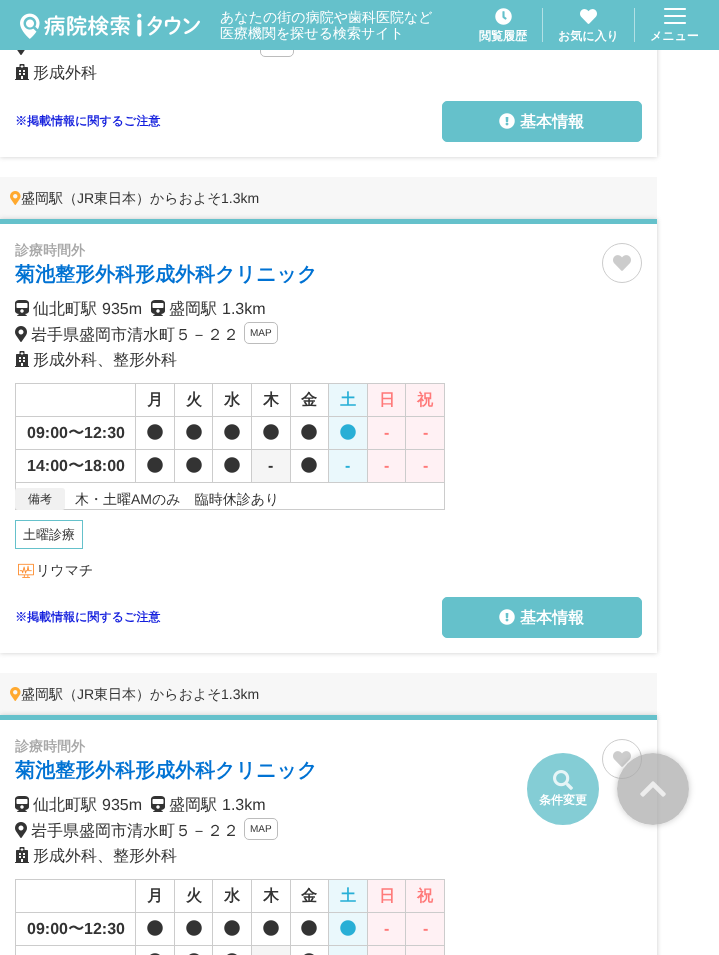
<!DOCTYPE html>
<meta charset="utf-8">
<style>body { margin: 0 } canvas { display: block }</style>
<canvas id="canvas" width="719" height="955"></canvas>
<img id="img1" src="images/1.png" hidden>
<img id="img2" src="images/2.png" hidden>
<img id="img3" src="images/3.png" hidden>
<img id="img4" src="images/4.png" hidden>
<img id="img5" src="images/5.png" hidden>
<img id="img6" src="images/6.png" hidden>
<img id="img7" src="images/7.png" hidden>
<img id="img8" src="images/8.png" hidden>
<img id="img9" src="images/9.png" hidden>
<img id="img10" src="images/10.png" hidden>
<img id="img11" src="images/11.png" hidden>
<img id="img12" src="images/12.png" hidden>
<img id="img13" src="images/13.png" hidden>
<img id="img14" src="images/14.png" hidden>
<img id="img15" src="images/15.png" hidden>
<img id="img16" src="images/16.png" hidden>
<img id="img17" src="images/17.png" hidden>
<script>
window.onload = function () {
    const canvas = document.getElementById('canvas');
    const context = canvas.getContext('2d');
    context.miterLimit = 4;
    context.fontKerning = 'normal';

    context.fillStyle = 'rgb(255, 255, 255)';
    context.fillRect(0, 0, 719, 955);
    context.save();
    context.beginPath();
    context.moveTo(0, 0);
    context.lineTo(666, 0);
    context.lineTo(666, 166);
    context.lineTo(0, 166);
    context.closePath();
    context.moveTo(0, -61);
    context.lineTo(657, -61);
    context.lineTo(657, 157);
    context.lineTo(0, 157);
    context.closePath();
    context.clip('evenodd');
    context.fillStyle = 'rgb(204, 204, 204)';
    context.filter = 'blur(2.5px)';
    context.beginPath();
    context.rect(0, -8, 657, 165);
    context.fill();
    context.filter = 'none';
    context.restore();
    context.beginPath();
    context.roundRect(260.5, 35.5, 33, 21, 4.5);
    context.strokeStyle = 'rgb(188, 188, 188)';
    context.stroke();
    context.fillStyle = 'rgb(101, 193, 203)';
    context.fillRect(0, 0, 719, 50);
    context.drawImage(document.getElementById('img1'), 20, 13, 180, 26);
    context.drawImage(document.getElementById('img2'), 495, 8, 17, 17);
    context.fillStyle = 'rgb(178, 224, 229)';
    context.fillRect(542, 8, 1, 34);
    context.drawImage(document.getElementById('img3'), 580, 9, 17, 15);
    context.fillRect(634, 8, 1, 34);
    context.drawImage(document.getElementById('img4'), 664, 8, 22, 16);
    context.drawImage(document.getElementById('img5'), 17, 50, 8, 5);
    context.drawImage(document.getElementById('img6'), 15, 64, 14, 16);
    context.fillStyle = 'rgb(101, 193, 203)';
    context.beginPath();
    context.roundRect(442.5, 101.5, 199, 40, 4.5);
    context.fill();
    context.strokeStyle = 'rgb(101, 193, 203)';
    context.stroke();
    context.drawImage(document.getElementById('img7'), 499, 113, 16, 16);
    context.fillStyle = 'rgb(247, 247, 247)';
    context.fillRect(0, 177, 657, 42);
    context.drawImage(document.getElementById('img8'), 10, 191, 11, 14);
    context.save();
    context.beginPath();
    context.moveTo(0, 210);
    context.lineTo(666, 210);
    context.lineTo(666, 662);
    context.lineTo(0, 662);
    context.closePath();
    context.moveTo(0, 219);
    context.lineTo(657, 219);
    context.lineTo(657, 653);
    context.lineTo(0, 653);
    context.closePath();
    context.clip('evenodd');
    context.fillStyle = 'rgb(204, 204, 204)';
    context.filter = 'blur(2.5px)';
    context.beginPath();
    context.rect(0, 219, 657, 434);
    context.fill();
    context.filter = 'none';
    context.restore();
    context.fillStyle = 'rgb(101, 193, 203)';
    context.fillRect(0, 219, 657, 5);
    context.beginPath();
    context.arc(622, 263, 19.5, 0, 2 * Math.PI);
    context.strokeStyle = 'rgb(204, 204, 204)';
    context.stroke();
    context.drawImage(document.getElementById('img9'), 613, 255, 18, 16);
    context.drawImage(document.getElementById('img10'), 15, 300, 14, 16);
    context.drawImage(document.getElementById('img10'), 151, 300, 14, 16);
    context.drawImage(document.getElementById('img11'), 15, 326, 12, 16);
    context.beginPath();
    context.roundRect(244.5, 322.5, 33, 21, 4.5);
    context.strokeStyle = 'rgb(188, 188, 188)';
    context.stroke();
    context.drawImage(document.getElementById('img6'), 15, 351, 14, 16);
    context.fillStyle = 'rgb(204, 204, 204)';
    context.fillRect(15, 383, 430, 1);
    context.fillRect(444, 383, 1, 127);
    context.fillRect(15, 509, 430, 1);
    context.fillRect(15, 383, 1, 127);
    context.fillRect(405, 416, 40, 1);
    context.fillRect(405, 449, 40, 1);
    context.fillRect(405, 482, 40, 1);
    context.fillRect(405, 449, 1, 34);
    context.fillRect(367, 449, 39, 1);
    context.fillRect(405, 416, 1, 34);
    context.fillRect(367, 416, 39, 1);
    context.fillRect(367, 482, 39, 1);
    context.fillRect(367, 449, 1, 34);
    context.fillRect(328, 449, 40, 1);
    context.fillRect(367, 416, 1, 34);
    context.fillRect(328, 416, 40, 1);
    context.fillRect(328, 482, 40, 1);
    context.fillRect(328, 449, 1, 34);
    context.fillRect(290, 449, 39, 1);
    context.fillRect(328, 416, 1, 34);
    context.fillRect(290, 416, 39, 1);
    context.fillRect(290, 482, 39, 1);
    context.fillRect(290, 449, 1, 34);
    context.fillRect(251, 449, 40, 1);
    context.fillRect(290, 416, 1, 34);
    context.fillRect(251, 416, 40, 1);
    context.fillRect(251, 482, 40, 1);
    context.fillRect(251, 449, 1, 34);
    context.fillRect(212, 449, 40, 1);
    context.fillRect(251, 416, 1, 34);
    context.fillRect(212, 416, 40, 1);
    context.fillRect(212, 482, 40, 1);
    context.fillRect(212, 449, 1, 34);
    context.fillRect(174, 449, 39, 1);
    context.fillRect(212, 416, 1, 34);
    context.fillRect(174, 416, 39, 1);
    context.fillRect(174, 482, 39, 1);
    context.fillRect(174, 449, 1, 34);
    context.fillRect(135, 449, 40, 1);
    context.fillRect(174, 416, 1, 34);
    context.fillRect(135, 416, 40, 1);
    context.fillRect(135, 482, 40, 1);
    context.fillRect(135, 449, 1, 34);
    context.fillRect(15, 449, 121, 1);
    context.fillRect(135, 416, 1, 34);
    context.fillRect(15, 416, 121, 1);
    context.fillRect(135, 383, 1, 34);
    context.fillRect(174, 383, 1, 34);
    context.fillRect(212, 383, 1, 34);
    context.fillRect(251, 383, 1, 34);
    context.fillRect(290, 383, 1, 34);
    context.fillStyle = 'rgb(234, 248, 252)';
    context.fillRect(329, 384, 38, 32);
    context.fillStyle = 'rgb(204, 204, 204)';
    context.fillRect(328, 383, 1, 34);
    context.fillStyle = 'rgb(255, 241, 244)';
    context.fillRect(368, 384, 37, 32);
    context.fillStyle = 'rgb(204, 204, 204)';
    context.fillRect(367, 383, 1, 34);
    context.fillStyle = 'rgb(255, 241, 244)';
    context.fillRect(406, 384, 38, 32);
    context.fillStyle = 'rgb(204, 204, 204)';
    context.fillRect(405, 383, 1, 34);
    context.drawImage(document.getElementById('img12'), 147, 424, 16, 16);
    context.drawImage(document.getElementById('img12'), 186, 424, 16, 16);
    context.drawImage(document.getElementById('img12'), 224, 424, 16, 16);
    context.drawImage(document.getElementById('img12'), 263, 424, 16, 16);
    context.drawImage(document.getElementById('img12'), 301, 424, 16, 16);
    context.fillStyle = 'rgb(234, 248, 252)';
    context.fillRect(329, 417, 38, 32);
    context.drawImage(document.getElementById('img13'), 340, 424, 16, 16);
    context.fillStyle = 'rgb(255, 241, 244)';
    context.fillRect(368, 417, 37, 32);
    context.fillRect(406, 417, 38, 32);
    context.fillStyle = 'rgb(204, 204, 204)';
    context.fillRect(15, 482, 121, 1);
    context.drawImage(document.getElementById('img12'), 147, 457, 16, 16);
    context.drawImage(document.getElementById('img12'), 186, 457, 16, 16);
    context.drawImage(document.getElementById('img12'), 224, 457, 16, 16);
    context.fillStyle = 'rgb(245, 245, 245)';
    context.fillRect(252, 450, 38, 32);
    context.drawImage(document.getElementById('img12'), 301, 457, 16, 16);
    context.fillStyle = 'rgb(234, 248, 252)';
    context.fillRect(329, 450, 38, 32);
    context.fillStyle = 'rgb(255, 241, 244)';
    context.fillRect(368, 450, 37, 32);
    context.fillRect(406, 450, 38, 32);
    context.fillStyle = 'rgb(241, 241, 241)';
    context.beginPath();
    context.roundRect(15, 488, 50, 22, 3);
    context.fill();
    context.strokeStyle = 'rgb(101, 193, 203)';
    context.strokeRect(15.5, 520.5, 67, 28);
    context.drawImage(document.getElementById('img14'), 18, 563, 16, 15);
    context.fillStyle = 'rgb(101, 193, 203)';
    context.beginPath();
    context.roundRect(442.5, 597.5, 199, 40, 4.5);
    context.fill();
    context.stroke();
    context.drawImage(document.getElementById('img7'), 499, 609, 16, 16);
    context.fillStyle = 'rgb(247, 247, 247)';
    context.fillRect(0, 673, 657, 42);
    context.drawImage(document.getElementById('img8'), 10, 687, 11, 14);
    context.save();
    context.beginPath();
    context.moveTo(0, 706);
    context.lineTo(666, 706);
    context.lineTo(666, 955);
    context.lineTo(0, 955);
    context.closePath();
    context.moveTo(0, 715);
    context.lineTo(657, 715);
    context.lineTo(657, 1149);
    context.lineTo(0, 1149);
    context.closePath();
    context.clip('evenodd');
    context.fillStyle = 'rgb(204, 204, 204)';
    context.filter = 'blur(2.5px)';
    context.beginPath();
    context.rect(0, 715, 657, 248);
    context.fill();
    context.filter = 'none';
    context.restore();
    context.fillStyle = 'rgb(101, 193, 203)';
    context.fillRect(0, 715, 657, 5);
    context.beginPath();
    context.arc(622, 759, 19.5, 0, 2 * Math.PI);
    context.strokeStyle = 'rgb(204, 204, 204)';
    context.stroke();
    context.drawImage(document.getElementById('img9'), 613, 751, 18, 16);
    context.drawImage(document.getElementById('img10'), 15, 796, 14, 16);
    context.drawImage(document.getElementById('img10'), 151, 796, 14, 16);
    context.drawImage(document.getElementById('img11'), 15, 822, 12, 16);
    context.beginPath();
    context.roundRect(244.5, 818.5, 33, 21, 4.5);
    context.strokeStyle = 'rgb(188, 188, 188)';
    context.stroke();
    context.drawImage(document.getElementById('img6'), 15, 847, 14, 16);
    context.fillStyle = 'rgb(204, 204, 204)';
    context.fillRect(15, 879, 430, 1);
    context.fillRect(444, 879, 1, 76);
    context.fillRect(15, 879, 1, 76);
    context.fillRect(405, 912, 40, 1);
    context.fillRect(405, 945, 40, 1);
    context.fillRect(405, 945, 1, 10);
    context.fillRect(367, 945, 39, 1);
    context.fillRect(405, 912, 1, 34);
    context.fillRect(367, 912, 39, 1);
    context.fillRect(367, 945, 1, 10);
    context.fillRect(328, 945, 40, 1);
    context.fillRect(367, 912, 1, 34);
    context.fillRect(328, 912, 40, 1);
    context.fillRect(328, 945, 1, 10);
    context.fillRect(290, 945, 39, 1);
    context.fillRect(328, 912, 1, 34);
    context.fillRect(290, 912, 39, 1);
    context.fillRect(290, 945, 1, 10);
    context.fillRect(251, 945, 40, 1);
    context.fillRect(290, 912, 1, 34);
    context.fillRect(251, 912, 40, 1);
    context.fillRect(251, 945, 1, 10);
    context.fillRect(212, 945, 40, 1);
    context.fillRect(251, 912, 1, 34);
    context.fillRect(212, 912, 40, 1);
    context.fillRect(212, 945, 1, 10);
    context.fillRect(174, 945, 39, 1);
    context.fillRect(212, 912, 1, 34);
    context.fillRect(174, 912, 39, 1);
    context.fillRect(174, 945, 1, 10);
    context.fillRect(135, 945, 40, 1);
    context.fillRect(174, 912, 1, 34);
    context.fillRect(135, 912, 40, 1);
    context.fillRect(135, 945, 1, 10);
    context.fillRect(15, 945, 121, 1);
    context.fillRect(135, 912, 1, 34);
    context.fillRect(15, 912, 121, 1);
    context.fillRect(135, 879, 1, 34);
    context.fillRect(174, 879, 1, 34);
    context.fillRect(212, 879, 1, 34);
    context.fillRect(251, 879, 1, 34);
    context.fillRect(290, 879, 1, 34);
    context.fillStyle = 'rgb(234, 248, 252)';
    context.fillRect(329, 880, 38, 32);
    context.fillStyle = 'rgb(204, 204, 204)';
    context.fillRect(328, 879, 1, 34);
    context.fillStyle = 'rgb(255, 241, 244)';
    context.fillRect(368, 880, 37, 32);
    context.fillStyle = 'rgb(204, 204, 204)';
    context.fillRect(367, 879, 1, 34);
    context.fillStyle = 'rgb(255, 241, 244)';
    context.fillRect(406, 880, 38, 32);
    context.fillStyle = 'rgb(204, 204, 204)';
    context.fillRect(405, 879, 1, 34);
    context.drawImage(document.getElementById('img12'), 147, 920, 16, 16);
    context.drawImage(document.getElementById('img12'), 186, 920, 16, 16);
    context.drawImage(document.getElementById('img12'), 224, 920, 16, 16);
    context.drawImage(document.getElementById('img12'), 263, 920, 16, 16);
    context.drawImage(document.getElementById('img12'), 301, 920, 16, 16);
    context.fillStyle = 'rgb(234, 248, 252)';
    context.fillRect(329, 913, 38, 32);
    context.drawImage(document.getElementById('img13'), 340, 920, 16, 16);
    context.fillStyle = 'rgb(255, 241, 244)';
    context.fillRect(368, 913, 37, 32);
    context.fillRect(406, 913, 38, 32);
    context.drawImage(document.getElementById('img15'), 150, 953, 10, 2);
    context.drawImage(document.getElementById('img15'), 189, 953, 10, 2);
    context.drawImage(document.getElementById('img15'), 227, 953, 10, 2);
    context.fillStyle = 'rgb(245, 245, 245)';
    context.fillRect(252, 946, 38, 9);
    context.drawImage(document.getElementById('img15'), 304, 953, 10, 2);
    context.fillStyle = 'rgb(234, 248, 252)';
    context.fillRect(329, 946, 38, 9);
    context.fillStyle = 'rgb(255, 241, 244)';
    context.fillRect(368, 946, 37, 9);
    context.fillRect(406, 946, 38, 9);
    context.fillStyle = 'rgb(132, 205, 213)';
    context.beginPath();
    context.arc(563, 789, 35, 0, 2 * Math.PI);
    context.fill();
    context.strokeStyle = 'rgb(132, 205, 213)';
    context.lineWidth = 2;
    context.stroke();
    context.drawImage(document.getElementById('img16'), 553, 770, 20, 20);
    context.save();
    context.beginPath();
    context.moveTo(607, 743);
    context.lineTo(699, 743);
    context.lineTo(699, 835);
    context.lineTo(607, 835);
    context.closePath();
    context.moveTo(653, 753);
    context.bezierCurveTo(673, 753, 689, 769, 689, 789);
    context.bezierCurveTo(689, 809, 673, 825, 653, 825);
    context.bezierCurveTo(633, 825, 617, 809, 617, 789);
    context.bezierCurveTo(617, 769, 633, 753, 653, 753);
    context.closePath();
    context.clip('evenodd');
    context.fillStyle = 'rgba(0, 0, 0, 0.21)';
    context.filter = 'blur(3px)';
    context.beginPath();
    context.roundRect(617, 753, 72, 72, 36);
    context.fill();
    context.filter = 'none';
    context.restore();
    context.fillStyle = 'rgba(168, 168, 168, 0.7)';
    context.beginPath();
    context.arc(653, 789, 36, 0, 2 * Math.PI);
    context.fill();
    context.drawImage(document.getElementById('img17'), 640, 781, 26, 16);
    context.font = '500 14px WenQuanYi Zen Hei';
    context.fillStyle = 'rgb(255, 255, 255)';
    context.fillText('あなたの街の病院や歯科医院など', 220, 22);
    context.fillText('医療機関を探せる検索サイト', 220, 38);
    context.font = 'bold 12px WenQuanYi Zen Hei';
    context.fillText('閲覧履歴', 479, 40);
    context.fillText('お気に入り', 558, 40);
    context.fillText('メニュー', 650, 40);
    context.font = '500 16px WenQuanYi Zen Hei';
    context.fillStyle = 'rgb(51, 51, 51)';
    context.fillText('形成外科', 33, 78);
    context.font = 'bold 12px WenQuanYi Zen Hei';
    context.fillStyle = 'rgb(19, 30, 221)';
    context.fillText('※掲載情報に関するご注意', 15, 125);
    context.font = 'bold 16px WenQuanYi Zen Hei';
    context.fillStyle = 'rgb(255, 255, 255)';
    context.fillText('基本情報', 520, 127);
    context.font = '500 14px WenQuanYi Zen Hei';
    context.fillStyle = 'rgb(51, 51, 51)';
    context.fillText('盛岡駅（', 21, 203);
    context.font = '14px Liberation Sans';
    context.fillText('JR', 77, 203);
    context.font = '500 14px WenQuanYi Zen Hei';
    context.fillText('東日本）からおよそ', 94, 203);
    context.font = '14px Liberation Sans';
    context.fillText('1.3km', 221, 203);
    context.font = 'bold 14px WenQuanYi Zen Hei';
    context.fillStyle = 'rgb(168, 168, 168)';
    context.fillText('診療時間外', 15, 255);
    context.font = 'bold 20px WenQuanYi Zen Hei';
    context.fillStyle = 'rgb(0, 114, 211)';
    context.fillText('菊池整形外科形成外科クリニック', 15, 281);
    context.font = '500 16px WenQuanYi Zen Hei';
    context.fillStyle = 'rgb(51, 51, 51)';
    context.fillText('仙北町駅', 33, 314);
    context.font = '16px Liberation Sans';
    context.fillText('935m', 102, 314);
    context.font = '500 16px WenQuanYi Zen Hei';
    context.fillText('盛岡駅', 169, 314);
    context.font = '16px Liberation Sans';
    context.fillText('1.3km', 222, 314);
    context.font = '500 16px WenQuanYi Zen Hei';
    context.fillText('岩手県盛岡市清水町５－２２', 31, 340);
    context.font = '10px Liberation Sans';
    context.fillText('MAP', 250, 336);
    context.font = '500 16px WenQuanYi Zen Hei';
    context.fillText('形成外科、整形外科', 33, 365);
    context.font = 'bold 16px WenQuanYi Zen Hei';
    context.fillText('月', 147, 405);
    context.fillText('火', 186, 405);
    context.fillText('水', 224, 405);
    context.fillText('木', 263, 405);
    context.fillText('金', 301, 405);
    context.fillStyle = 'rgb(40, 175, 214)';
    context.fillText('土', 340, 405);
    context.fillStyle = 'rgb(255, 121, 121)';
    context.fillText('日', 379, 405);
    context.fillText('祝', 417, 405);
    context.font = 'bold 16px Liberation Sans';
    context.fillStyle = 'rgb(51, 51, 51)';
    context.fillText('09:00', 27, 438);
    context.font = 'bold 16px WenQuanYi Zen Hei';
    context.fillText('〜', 68, 438);
    context.font = 'bold 16px Liberation Sans';
    context.fillText('12:30', 84, 438);
    context.fillStyle = 'rgb(255, 121, 121)';
    context.fillText('-', 384, 438);
    context.fillText('-', 423, 438);
    context.fillStyle = 'rgb(51, 51, 51)';
    context.fillText('14:00', 27, 471);
    context.font = 'bold 16px WenQuanYi Zen Hei';
    context.fillText('〜', 68, 471);
    context.font = 'bold 16px Liberation Sans';
    context.fillText('18:00', 84, 471);
    context.fillText('-', 268, 471);
    context.fillStyle = 'rgb(40, 175, 214)';
    context.fillText('-', 345, 471);
    context.fillStyle = 'rgb(255, 121, 121)';
    context.fillText('-', 384, 471);
    context.fillText('-', 423, 471);
    context.font = '500 12px WenQuanYi Zen Hei';
    context.fillStyle = 'rgb(51, 51, 51)';
    context.fillText('備考', 28, 503);
    context.font = '500 14px WenQuanYi Zen Hei';
    context.fillText('木・土曜', 75, 504);
    context.font = '14px Liberation Sans';
    context.fillText('AM', 131, 504);
    context.font = '500 14px WenQuanYi Zen Hei';
    context.fillText('のみ　臨時休診あり', 152, 504);
    context.font = '500 13px WenQuanYi Zen Hei';
    context.fillText('土曜診療', 23, 539);
    context.font = '500 14px WenQuanYi Zen Hei';
    context.fillText('リウマチ', 36, 575);
    context.font = 'bold 12px WenQuanYi Zen Hei';
    context.fillStyle = 'rgb(19, 30, 221)';
    context.fillText('※掲載情報に関するご注意', 15, 621);
    context.font = 'bold 16px WenQuanYi Zen Hei';
    context.fillStyle = 'rgb(255, 255, 255)';
    context.fillText('基本情報', 520, 623);
    context.font = '500 14px WenQuanYi Zen Hei';
    context.fillStyle = 'rgb(51, 51, 51)';
    context.fillText('盛岡駅（', 21, 699);
    context.font = '14px Liberation Sans';
    context.fillText('JR', 77, 699);
    context.font = '500 14px WenQuanYi Zen Hei';
    context.fillText('東日本）からおよそ', 94, 699);
    context.font = '14px Liberation Sans';
    context.fillText('1.3km', 221, 699);
    context.font = 'bold 14px WenQuanYi Zen Hei';
    context.fillStyle = 'rgb(168, 168, 168)';
    context.fillText('診療時間外', 15, 751);
    context.font = 'bold 20px WenQuanYi Zen Hei';
    context.fillStyle = 'rgb(0, 114, 211)';
    context.fillText('菊池整形外科形成外科クリニック', 15, 777);
    context.font = '500 16px WenQuanYi Zen Hei';
    context.fillStyle = 'rgb(51, 51, 51)';
    context.fillText('仙北町駅', 33, 810);
    context.font = '16px Liberation Sans';
    context.fillText('935m', 102, 810);
    context.font = '500 16px WenQuanYi Zen Hei';
    context.fillText('盛岡駅', 169, 810);
    context.font = '16px Liberation Sans';
    context.fillText('1.3km', 222, 810);
    context.font = '500 16px WenQuanYi Zen Hei';
    context.fillText('岩手県盛岡市清水町５－２２', 31, 836);
    context.font = '10px Liberation Sans';
    context.fillText('MAP', 250, 832);
    context.font = '500 16px WenQuanYi Zen Hei';
    context.fillText('形成外科、整形外科', 33, 861);
    context.font = 'bold 16px WenQuanYi Zen Hei';
    context.fillText('月', 147, 901);
    context.fillText('火', 186, 901);
    context.fillText('水', 224, 901);
    context.fillText('木', 263, 901);
    context.fillText('金', 301, 901);
    context.fillStyle = 'rgb(40, 175, 214)';
    context.fillText('土', 340, 901);
    context.fillStyle = 'rgb(255, 121, 121)';
    context.fillText('日', 379, 901);
    context.fillText('祝', 417, 901);
    context.font = 'bold 16px Liberation Sans';
    context.fillStyle = 'rgb(51, 51, 51)';
    context.fillText('09:00', 27, 934);
    context.font = 'bold 16px WenQuanYi Zen Hei';
    context.fillText('〜', 68, 934);
    context.font = 'bold 16px Liberation Sans';
    context.fillText('12:30', 84, 934);
    context.fillStyle = 'rgb(255, 121, 121)';
    context.fillText('-', 384, 934);
    context.fillText('-', 423, 934);
    context.font = 'bold 12px WenQuanYi Zen Hei';
    context.fillStyle = 'rgb(255, 255, 255)';
    context.fillText('条件変更', 539, 804);
};
</script>
